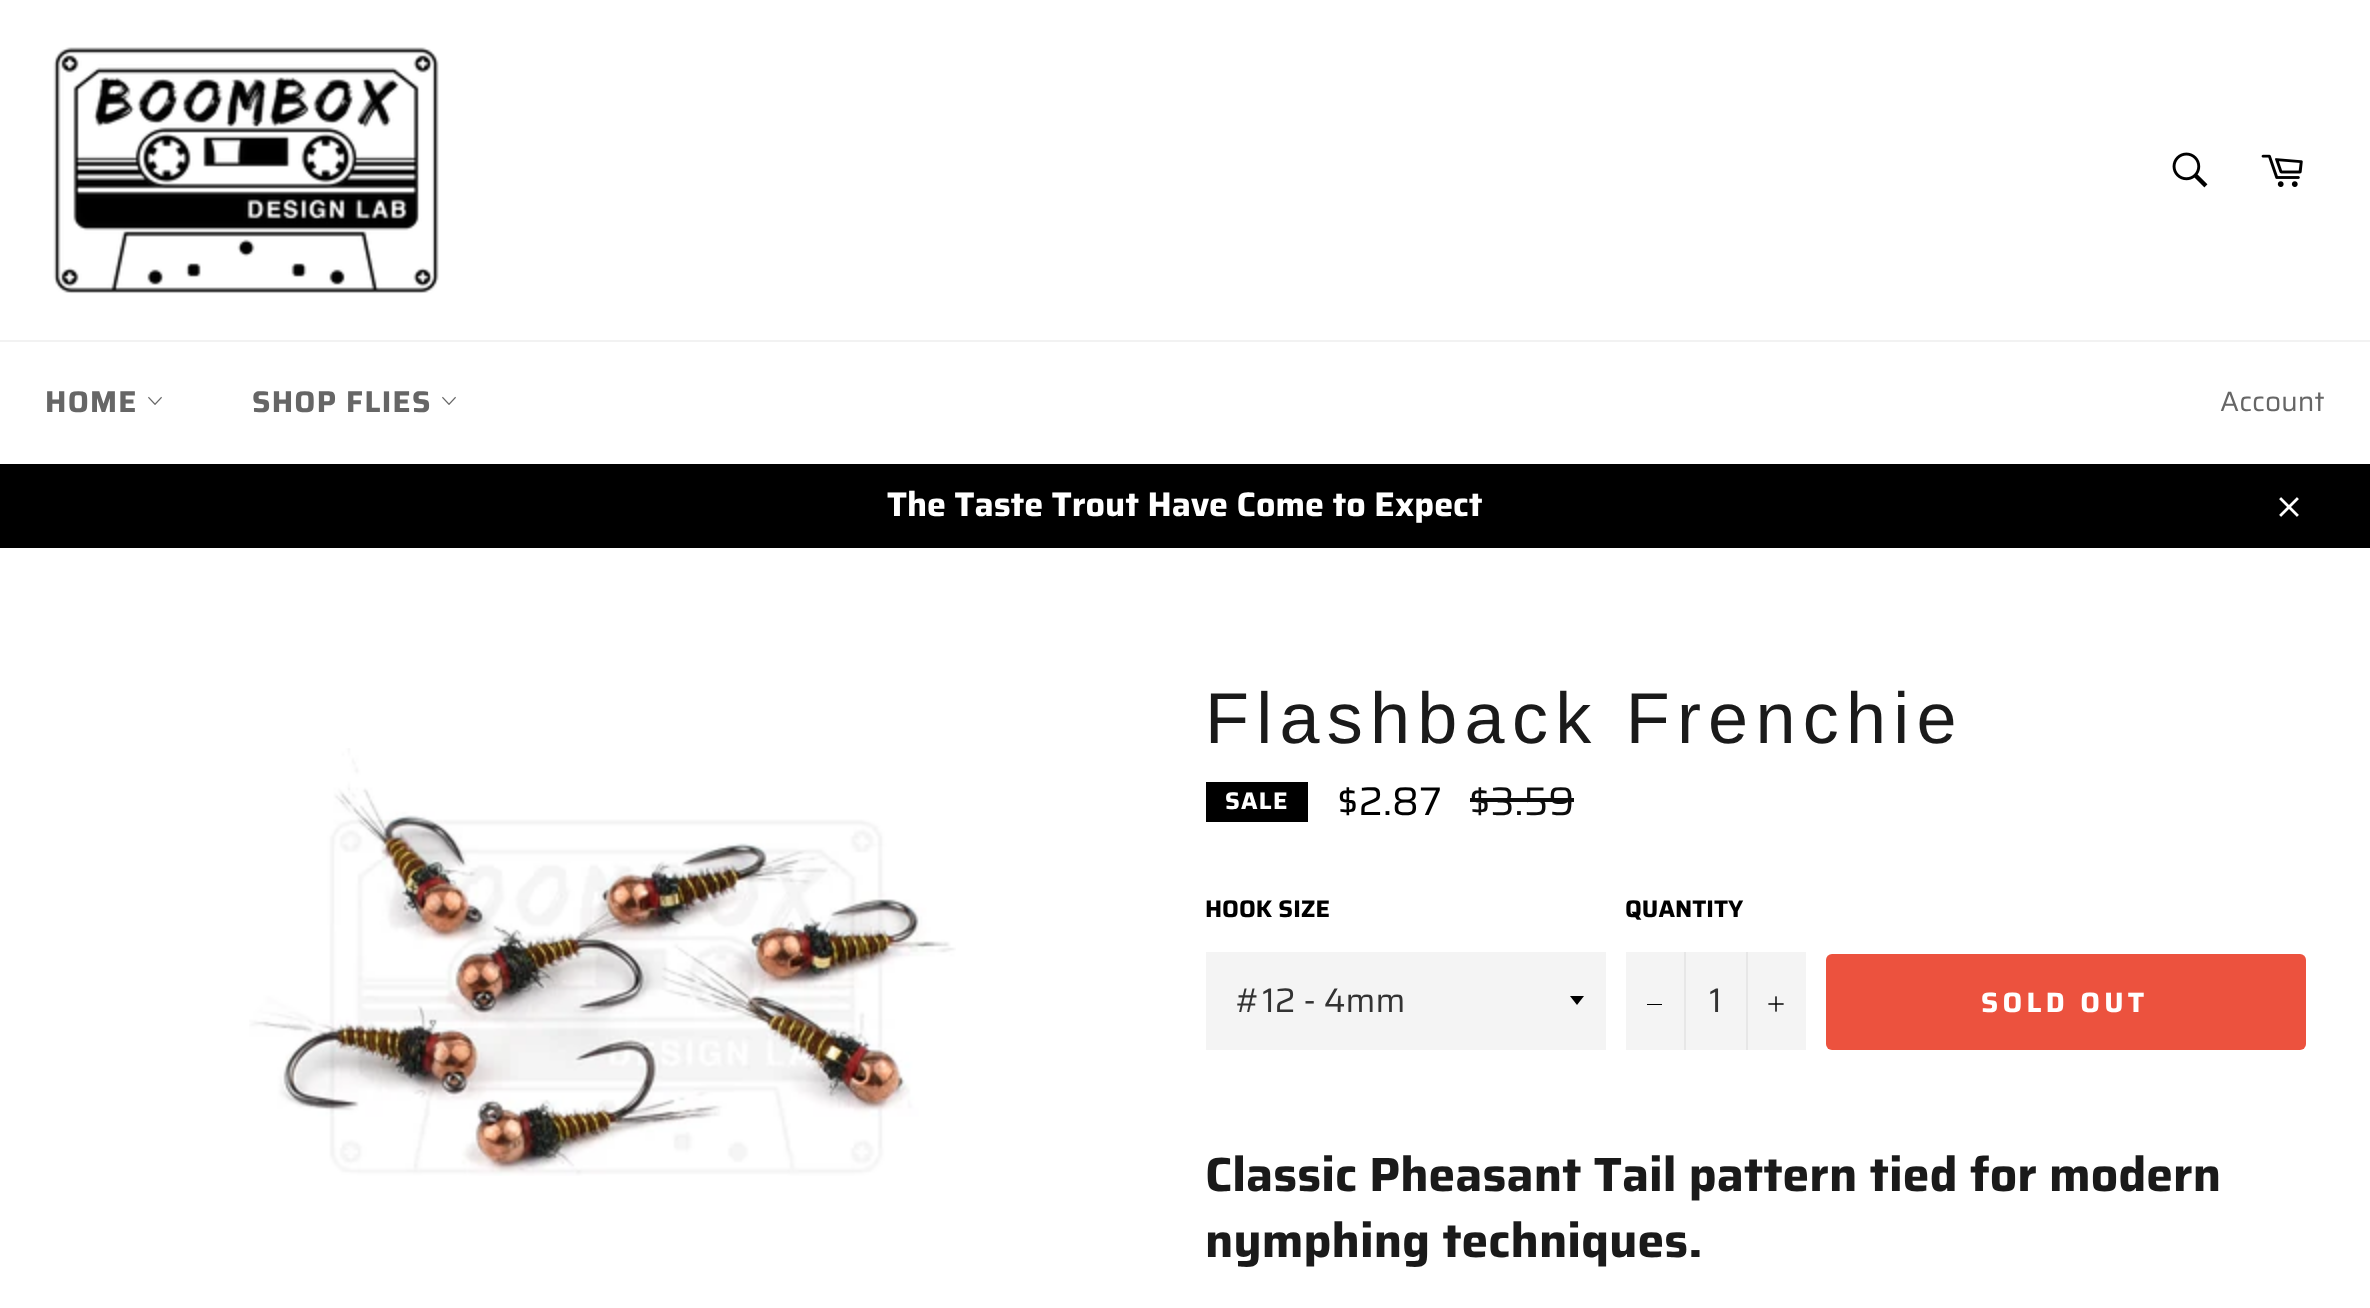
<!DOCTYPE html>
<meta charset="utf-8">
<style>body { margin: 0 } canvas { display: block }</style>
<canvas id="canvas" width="2370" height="1308"></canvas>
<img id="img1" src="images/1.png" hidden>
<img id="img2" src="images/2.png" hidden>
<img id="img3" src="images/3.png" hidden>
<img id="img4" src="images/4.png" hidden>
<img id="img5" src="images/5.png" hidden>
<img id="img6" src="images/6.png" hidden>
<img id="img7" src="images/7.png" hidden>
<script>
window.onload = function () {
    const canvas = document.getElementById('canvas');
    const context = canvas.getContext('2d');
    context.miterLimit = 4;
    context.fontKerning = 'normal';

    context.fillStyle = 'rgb(255, 255, 255)';
    context.fillRect(0, 0, 2370, 1308);
    context.drawImage(document.getElementById('img1'), 53, 47, 386, 247);
    context.drawImage(document.getElementById('img2'), 2172, 152, 36, 36);
    context.drawImage(document.getElementById('img3'), 2261, 154, 42, 33);
    context.fillStyle = 'rgb(242, 242, 242)';
    context.fillRect(0, 340, 2370, 2);
    context.drawImage(document.getElementById('img4'), 148, 396, 14, 9);
    context.drawImage(document.getElementById('img4'), 442, 396, 14, 9);
    context.fillStyle = 'rgb(0, 0, 0)';
    context.fillRect(0, 464, 2370, 84);
    context.drawImage(document.getElementById('img5'), 2279, 497, 20, 20);
    context.drawImage(document.getElementById('img6'), 249, 748, 707, 428);
    context.fillRect(1206, 782, 102, 40);
    context.fillStyle = 'rgb(13, 13, 13)';
    context.fillRect(1470, 798, 104, 4);
    context.fillStyle = 'rgb(244, 244, 244)';
    context.fillRect(1206, 952, 400, 98);
    context.fillStyle = 'rgb(0, 0, 0)';
    context.beginPath();
    context.moveTo(1570, 996);
    context.lineTo(1577, 1005);
    context.lineTo(1584, 996);
    context.closePath();
    context.fill();
    context.fillStyle = 'rgb(244, 244, 244)';
    context.fillRect(1626, 952, 180, 98);
    context.fillStyle = 'rgb(231, 231, 231)';
    context.fillRect(1684, 952, 2, 98);
    context.fillStyle = 'rgb(0, 0, 0)';
    context.fillRect(1647, 1004, 15, 1);
    context.fillStyle = 'rgb(231, 231, 231)';
    context.fillRect(1746, 952, 2, 98);
    context.drawImage(document.getElementById('img7'), 1768, 996, 16, 16);
    context.fillStyle = 'rgb(236, 82, 62)';
    context.beginPath();
    context.roundRect(1826, 954, 480, 96, 6);
    context.fill();
    context.letterSpacing = '1.25px';
    context.font = 'bold 30px Saira';
    context.fillStyle = 'rgb(102, 102, 102)';
    context.fillText('HOME', 45, 412);
    context.fillText('SHOP FLIES', 252, 412);
    context.letterSpacing = '0px';
    context.font = '28px Saira';
    context.fillText('Account', 2220, 411);
    context.font = 'bold 34px Saira';
    context.fillStyle = 'rgb(255, 255, 255)';
    context.fillText('The Taste Trout Have Come to Expect', 887, 516);
    context.letterSpacing = '7.25px';
    context.font = '72px Liberation Sans';
    context.fillStyle = 'rgb(26, 26, 26)';
    context.fillText('Flashback Frenchie', 1205, 743);
    context.letterSpacing = '1.25px';
    context.font = 'bold 24px Saira';
    context.fillStyle = 'rgb(255, 255, 255)';
    context.fillText('SALE', 1225, 809);
    context.letterSpacing = '0px';
    context.font = '40px Saira';
    context.fillStyle = 'rgb(0, 0, 0)';
    context.fillText('$2.87', 1337, 815);
    context.fillStyle = 'rgb(13, 13, 13)';
    context.fillText('$3.59', 1469, 815);
    context.font = 'bold 24px Saira';
    context.fillStyle = 'rgb(0, 0, 0)';
    context.fillText('HOOK SIZE', 1205, 917);
    context.font = '34px Saira';
    context.fillStyle = 'rgb(51, 51, 51)';
    context.fillText('#12 - 4mm', 1235, 1012);
    context.font = 'bold 24px Saira';
    context.fillStyle = 'rgb(0, 0, 0)';
    context.fillText('QUANTITY', 1625, 917);
    context.font = '34px Saira';
    context.fillStyle = 'rgb(51, 51, 51)';
    context.fillText('1', 1709, 1012);
    context.letterSpacing = '4.25px';
    context.font = 'bold 28px Saira';
    context.fillStyle = 'rgb(255, 255, 255)';
    context.fillText('SOLD OUT', 1981, 1012);
    context.letterSpacing = '0px';
    context.font = 'bold 48px Saira';
    context.fillStyle = 'rgb(26, 26, 26)';
    context.fillText('Classic Pheasant Tail pattern tied for modern', 1205, 1191);
    context.fillText('nymphing techniques.', 1205, 1257);
};
</script>
